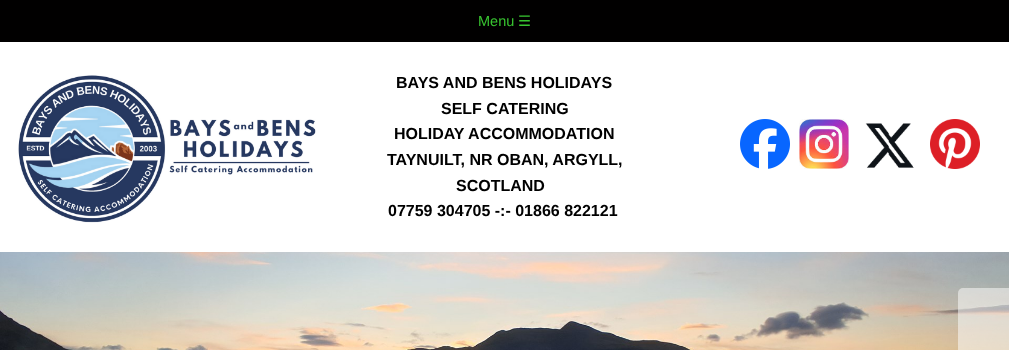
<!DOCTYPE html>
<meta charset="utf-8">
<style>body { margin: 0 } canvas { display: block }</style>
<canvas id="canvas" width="1009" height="350"></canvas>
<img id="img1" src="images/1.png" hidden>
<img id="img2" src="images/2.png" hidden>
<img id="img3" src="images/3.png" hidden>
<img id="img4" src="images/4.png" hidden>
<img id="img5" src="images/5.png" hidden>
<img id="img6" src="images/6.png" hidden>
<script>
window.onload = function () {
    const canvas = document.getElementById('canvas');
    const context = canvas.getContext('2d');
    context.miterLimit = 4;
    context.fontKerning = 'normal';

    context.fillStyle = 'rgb(255, 255, 255)';
    context.fillRect(0, 0, 1009, 350);
    context.fillStyle = 'rgb(1, 0, 0)';
    context.fillRect(0, 0, 1009, 42);
    context.drawImage(document.getElementById('img1'), 18, 75, 298, 148);
    context.drawImage(document.getElementById('img2'), 740, 119, 50, 50);
    context.drawImage(document.getElementById('img3'), 799, 119, 50, 50);
    context.drawImage(document.getElementById('img4'), 865, 123, 49, 45);
    context.drawImage(document.getElementById('img5'), 930, 119, 50, 50);
    context.drawImage(document.getElementById('img6'), 0, 252, 1009, 98);
    context.fillStyle = 'rgba(255, 255, 255, 0.5)';
    context.beginPath();
    context.roundRect(958, 288, 51, 62, [5, 0, 0, 0]);
    context.fill();
    context.font = '14.5px Liberation Sans';
    context.fillStyle = 'rgb(56, 195, 48)';
    context.fillText('Menu', 478, 26);
    context.font = '14.5px DejaVu Sans';
    context.fillText('☰', 518, 26);
    context.font = 'bold 16px Liberation Sans';
    context.fillStyle = 'rgb(0, 0, 0)';
    context.fillText('BAYS AND BENS HOLIDAYS', 396, 88);
    context.fillText('SELF CATERING', 441, 114);
    context.fillText('HOLIDAY ACCOMMODATION', 394, 139);
    context.fillText('TAYNUILT, NR OBAN, ARGYLL,', 387, 165);
    context.fillText('SCOTLAND', 456, 191);
    context.fillText('07759 304705 -:- 01866 822121', 388, 216);
};
</script>
